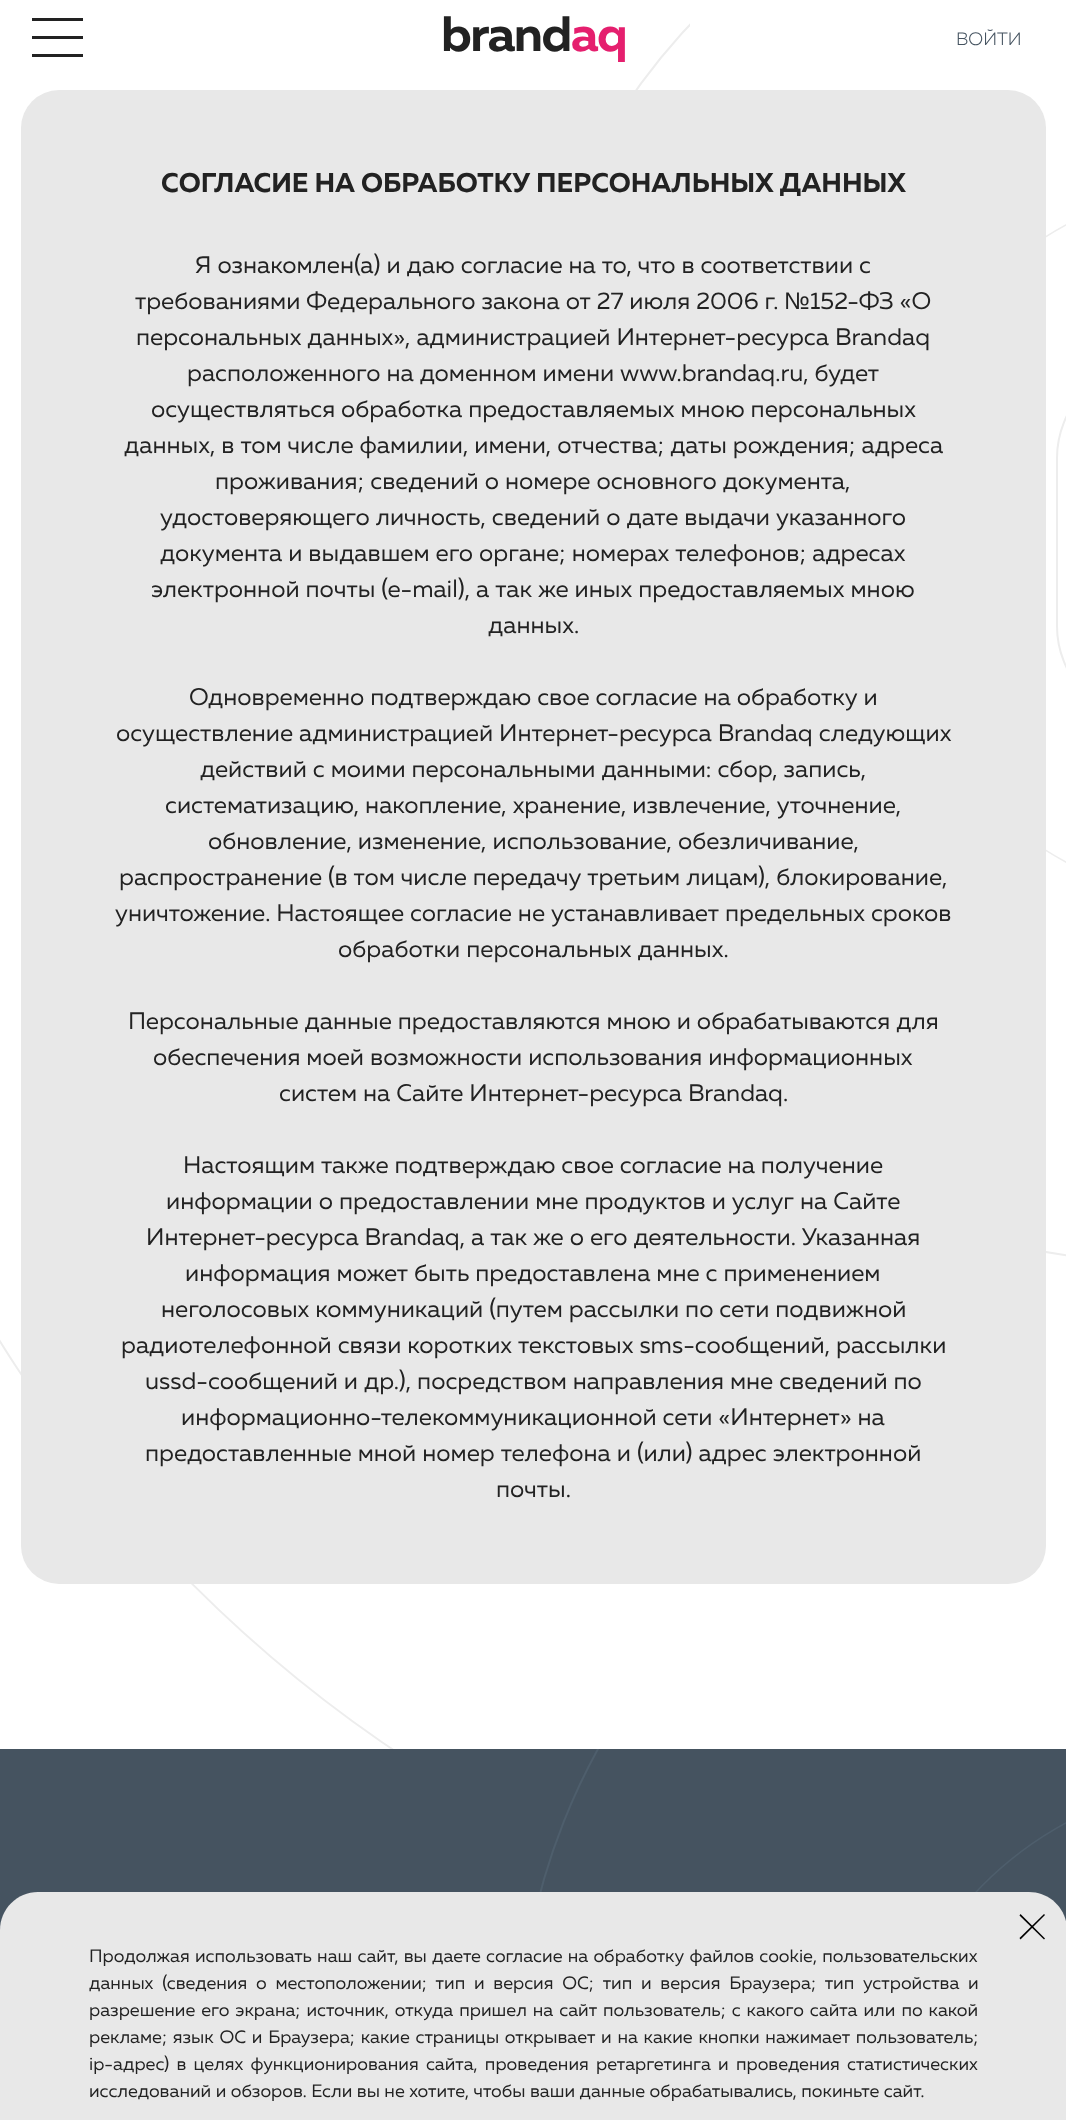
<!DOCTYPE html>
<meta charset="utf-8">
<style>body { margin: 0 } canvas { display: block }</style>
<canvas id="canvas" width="1066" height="2120"></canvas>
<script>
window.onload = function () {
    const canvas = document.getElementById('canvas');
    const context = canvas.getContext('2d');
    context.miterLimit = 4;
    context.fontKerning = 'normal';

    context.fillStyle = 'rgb(255, 255, 255)';
    context.fillRect(0, 0, 1066, 2120);
    context.beginPath();
    context.roundRect(1057, 363, 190, 358, 179);
    context.strokeStyle = 'rgb(237, 237, 237)';
    context.lineWidth = 2;
    context.stroke();
    context.beginPath();
    context.moveTo(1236, 182);
    context.bezierCurveTo(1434.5, 182, 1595, 344, 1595, 544);
    context.bezierCurveTo(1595, 743.5, 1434.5, 905, 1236, 905);
    context.bezierCurveTo(1037.5, 905, 877, 743.5, 877, 544);
    context.bezierCurveTo(877, 344, 1037.5, 182, 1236, 182);
    context.closePath();
    context.lineWidth = 1.5;
    context.stroke();
    context.beginPath();
    context.roundRect(519, -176, 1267, 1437, 718);
    context.lineWidth = 2;
    context.stroke();
    context.beginPath();
    context.roundRect(-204, -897, 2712, 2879, 1439.5);
    context.stroke();
    context.fillRect(690, 0, 78, 75);
    context.fillStyle = 'rgb(34, 34, 34)';
    context.fillRect(32, 18, 51, 3);
    context.fillRect(32, 36, 51, 3);
    context.fillRect(32, 54, 51, 3);
    context.fillStyle = 'rgb(69, 83, 96)';
    context.fillRect(0, 1749, 1066, 181);
    context.beginPath();
    context.moveTo(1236, 1780);
    context.bezierCurveTo(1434.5, 1780, 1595, 1941.5, 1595, 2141);
    context.bezierCurveTo(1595, 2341, 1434.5, 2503, 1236, 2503);
    context.bezierCurveTo(1037.5, 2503, 877, 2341, 877, 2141);
    context.bezierCurveTo(877, 1941.5, 1037.5, 1780, 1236, 1780);
    context.closePath();
    context.strokeStyle = 'rgb(78, 94, 108)';
    context.lineWidth = 1.5;
    context.stroke();
    context.save();
    context.beginPath();
    context.rect(0, 1749, 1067, 348);
    context.clip();
    context.beginPath();
    context.roundRect(519, 1422, 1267, 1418, 718);
    context.lineWidth = 2;
    context.stroke();
    context.restore();
    context.fillStyle = 'rgb(232, 232, 232)';
    context.beginPath();
    context.roundRect(21, 90, 1025, 1494, 38);
    context.fill();
    context.beginPath();
    context.moveTo(38, 1892);
    context.lineTo(1029, 1892);
    context.bezierCurveTo(1050, 1892, 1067, 1909, 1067, 1930);
    context.lineTo(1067, 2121);
    context.lineTo(0, 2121);
    context.lineTo(0, 1930);
    context.bezierCurveTo(0, 1909, 17, 1892, 38, 1892);
    context.closePath();
    context.fill();
    context.fillStyle = 'rgb(0, 0, 0)';
    context.beginPath();
    context.moveTo(1020.5, 1914);
    context.lineTo(1045, 1938.5);
    context.lineTo(1044, 1939.5);
    context.lineTo(1019.5, 1915.5);
    context.closePath();
    context.fill();
    context.beginPath();
    context.moveTo(1019.5, 1938);
    context.lineTo(1044, 1914);
    context.lineTo(1045, 1915);
    context.lineTo(1020.5, 1939.5);
    context.closePath();
    context.fill();
    context.letterSpacing = '-1.5px';
    context.font = 'bold 49.5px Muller';
    context.fillStyle = 'rgb(34, 34, 34)';
    context.fillText('brand', 441, 51);
    context.fillStyle = 'rgb(229, 31, 110)';
    context.fillText('aq', 571, 51);
    context.letterSpacing = '0px';
    context.font = '300 18px Muller';
    context.fillStyle = 'rgb(69, 83, 96)';
    context.fillText('ВОЙТИ', 956, 45);
    context.font = 'bold 27px Muller';
    context.fillStyle = 'rgb(34, 34, 34)';
    context.fillText('CОГЛАСИЕ НА ОБРАБОТКУ ПЕРСОНАЛЬНЫХ ДАННЫХ', 161, 192);
    context.font = '24px Muller';
    context.fillText('Я ознакомлен(а) и даю согласие на то, что в соответствии с', 195, 273);
    context.fillText('требованиями Федерального закона от 27 июля 2006 г.', 135, 309);
    context.font = '24px Liberation Sans';
    context.fillText('№', 784, 309);
    context.font = '24px Muller';
    context.fillText('152-ФЗ «О', 810, 309);
    context.fillText('персональных данных», администрацией Интернет-ресурса Brandaq', 136, 345);
    context.fillText('расположенного на доменном имени', 187, 381);
    context.fillText('www.brandaq.ru, будет', 620, 381);
    context.fillText('осуществляться', 151, 417);
    context.fillText('обработка предоставляемых мною персональных', 341, 417);
    context.fillText('данных, в том числе фамилии, имени, отчества; даты рождения; адреса', 124, 453);
    context.fillText('проживания; сведений о номере основного документа,', 215, 489);
    context.fillText('удостоверяющего личность, сведений о дате выдачи указанного', 160, 525);
    context.fillText('документа и выдавшем его органе; номерах телефонов; адресах', 160, 561);
    context.fillText('электронной почты (е-mail), а так же иных предоставляемых мною', 151, 597);
    context.fillText('данных.', 488, 633);
    context.fillText('Одновременно подтверждаю свое согласие на обработку и', 189, 705);
    context.fillText('осуществление администрацией Интернет-ресурса Brandaq следующих', 116, 741);
    context.fillText('действий с моими персональными данными: сбор, запись,', 200, 777);
    context.fillText('систематизацию, накопление, хранение, извлечение, уточнение,', 165, 813);
    context.fillText('обновление, изменение, использование, обезличивание,', 208, 849);
    context.fillText('распространение (в том числе передачу третьим лицам), блокирование,', 119, 885);
    context.fillText('уничтожение. Настоящее согласие не устанавливает предельных сроков', 115, 921);
    context.fillText('обработки персональных данных.', 338, 957);
    context.fillText('Персональные данные предоставляются мною и обрабатываются для', 128, 1029);
    context.fillText('обеспечения моей возможности использования информационных', 153, 1065);
    context.fillText('систем на Сайте Интернет-ресурса Brandaq.', 279, 1101);
    context.fillText('Настоящим также подтверждаю свое согласие на получение', 183, 1173);
    context.fillText('информации о предоставлении мне продуктов и услуг на Сайте', 166, 1209);
    context.fillText('Интернет-ресурса Brandaq, а так же о его деятельности. Указанная', 146, 1245);
    context.fillText('информация может быть предоставлена мне с применением', 185, 1281);
    context.fillText('неголосовых коммуникаций (путем рассылки по сети подвижной', 161, 1317);
    context.fillText('радиотелефонной связи коротких текстовых sms-сообщений, рассылки', 121, 1353);
    context.fillText('ussd-сообщений и др.), посредством направления мне сведений по', 145, 1389);
    context.fillText('информационно-телекоммуникационной сети «Интернет» на', 181, 1425);
    context.fillText('предоставленные мной номер телефона и (или) адрес электронной', 145, 1461);
    context.fillText('почты.', 496, 1497);
    context.wordSpacing = '0.75px';
    context.font = '18px Muller';
    context.fillText('Продолжая использовать наш сайт, вы даете согласие на обработку файлов cookie, пользовательских', 89, 1962);
    context.wordSpacing = '4.25px';
    context.fillText('данных (сведения о местоположении; тип и версия ОС; тип и версия Браузера; тип устройства и', 89, 1989);
    context.wordSpacing = '1.5px';
    context.fillText('разрешение его экрана; источник, откуда пришел на сайт пользователь; с какого сайта или по какой', 89, 2016);
    context.wordSpacing = '1.25px';
    context.fillText('рекламе; язык ОС и Браузера; какие страницы открывает и на какие кнопки нажимает пользователь;', 89, 2043);
    context.wordSpacing = '2.75px';
    context.fillText('ip-адрес) в целях функционирования сайта, проведения ретаргетинга и проведения статистических', 89, 2070);
    context.wordSpacing = '0px';
    context.fillText('исследований и обзоров. Если вы не хотите, чтобы ваши данные обрабатывались, покиньте сайт.', 89, 2097);
};
</script>
